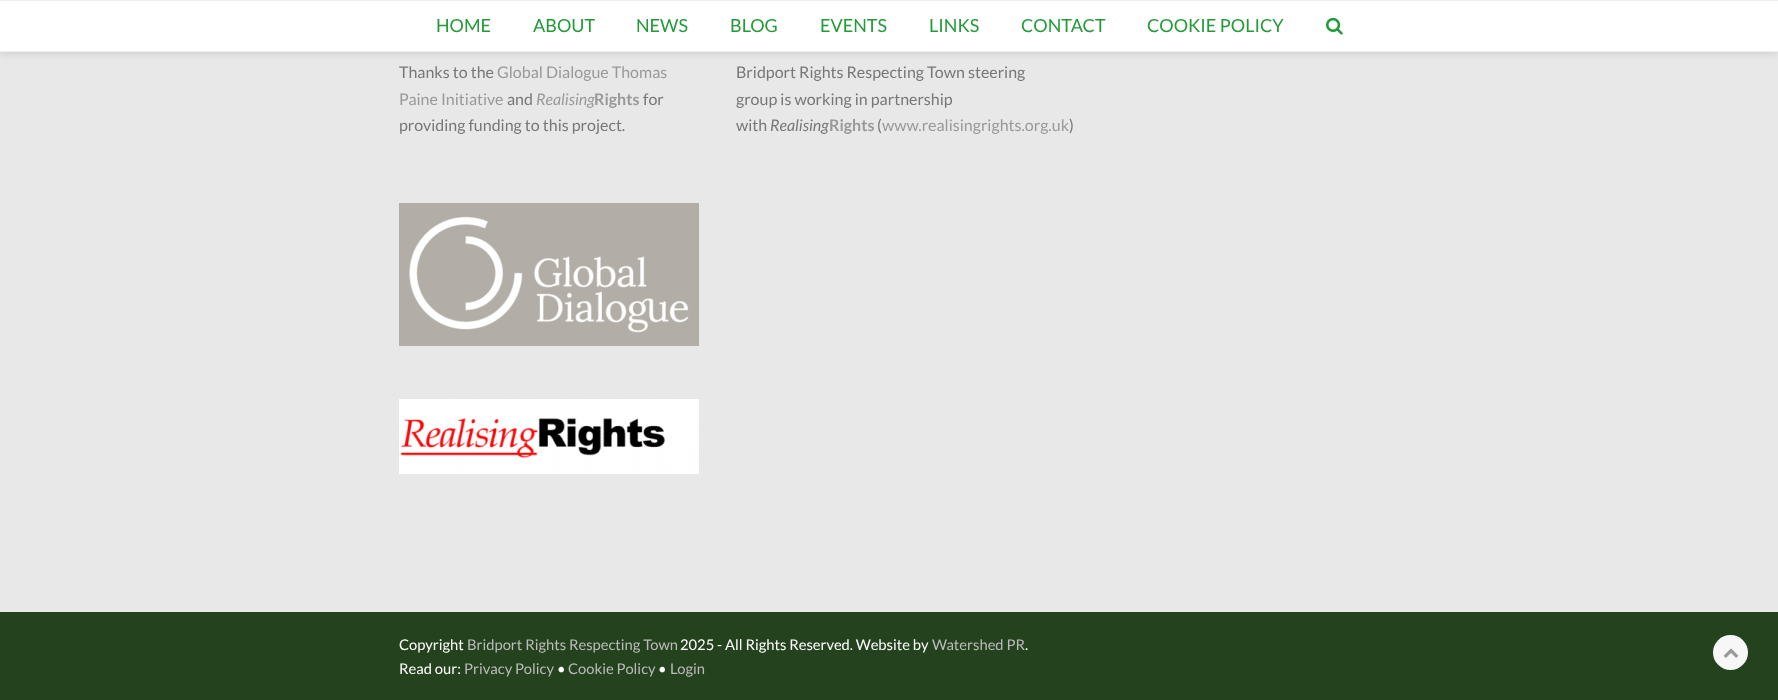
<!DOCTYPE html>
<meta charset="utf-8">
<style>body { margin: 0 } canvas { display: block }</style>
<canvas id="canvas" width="1778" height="700"></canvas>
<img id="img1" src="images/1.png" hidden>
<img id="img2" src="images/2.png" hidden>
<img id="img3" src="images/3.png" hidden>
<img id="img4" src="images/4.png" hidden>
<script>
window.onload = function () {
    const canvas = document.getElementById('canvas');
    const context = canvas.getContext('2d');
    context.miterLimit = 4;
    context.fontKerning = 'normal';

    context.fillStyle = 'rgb(232, 232, 232)';
    context.fillRect(0, 0, 1778, 700);
    context.fillStyle = 'rgba(0, 0, 0, 0.1)';
    context.filter = 'blur(3.5px)';
    context.beginPath();
    context.rect(0, 2, 1778, 52);
    context.fill();
    context.filter = 'none';
    context.fillStyle = 'rgb(255, 255, 255)';
    context.fillRect(0, 1, 1778, 50);
    context.fillStyle = 'rgb(238, 238, 238)';
    context.fillRect(0, 0, 1778, 1);
    context.fillRect(0, 51, 1778, 1);
    context.drawImage(document.getElementById('img1'), 1326, 17, 17, 18);
    context.drawImage(document.getElementById('img2'), 399, 203, 300, 143);
    context.drawImage(document.getElementById('img3'), 399, 399, 300, 75);
    context.fillStyle = 'rgb(37, 66, 30)';
    context.fillRect(0, 612, 1778, 88);
    context.fillStyle = 'rgb(247, 247, 247)';
    context.beginPath();
    context.arc(1730.5, 652.5, 17.5, 0, 2 * Math.PI);
    context.fill();
    context.drawImage(document.getElementById('img4'), 1723, 648, 16, 10);
    context.font = '18px Lato';
    context.fillStyle = 'rgb(35, 155, 56)';
    context.fillText('HOME', 436, 32);
    context.fillText('ABOUT', 533, 32);
    context.fillText('NEWS', 636, 32);
    context.fillText('BLOG', 730, 32);
    context.fillText('EVENTS', 820, 32);
    context.fillText('LINKS', 929, 32);
    context.fillText('CONTACT', 1021, 32);
    context.fillText('COOKIE POLICY', 1147, 32);
    context.font = '16px Lato';
    context.fillStyle = 'rgb(119, 119, 119)';
    context.fillText('Thanks to the', 399, 78);
    context.fillStyle = 'rgb(153, 153, 153)';
    context.fillText('Global Dialogue Thomas', 497, 78);
    context.fillText('Paine Initiative', 399, 105);
    context.fillStyle = 'rgb(119, 119, 119)';
    context.fillText('and', 507, 105);
    context.font = 'italic 16px Lato';
    context.fillStyle = 'rgb(153, 153, 153)';
    context.fillText('Realising', 536, 105);
    context.font = 'bold 16px Lato';
    context.fillText('Rights', 594, 105);
    context.font = '16px Lato';
    context.fillStyle = 'rgb(119, 119, 119)';
    context.fillText('for', 643, 105);
    context.fillText('providing funding to this project.', 399, 131);
    context.fillText('Bridport Rights Respecting Town steering', 736, 78);
    context.fillText('group is working in partnership', 736, 105);
    context.fillText('with', 736, 131);
    context.font = 'italic 16px Lato';
    context.fillText('Realising', 770, 131);
    context.font = 'bold 16px Lato';
    context.fillStyle = 'rgb(153, 153, 153)';
    context.fillText('Rights', 829, 131);
    context.font = '16px Lato';
    context.fillStyle = 'rgb(119, 119, 119)';
    context.fillText('(', 877, 131);
    context.fillStyle = 'rgb(153, 153, 153)';
    context.fillText('www.realisingrights.org.uk', 882, 131);
    context.fillStyle = 'rgb(119, 119, 119)';
    context.fillText(')', 1069, 131);
    context.font = '14.75px Lato';
    context.fillStyle = 'rgb(255, 255, 255)';
    context.fillText('Copyright', 399, 650);
    context.fillStyle = 'rgb(187, 187, 187)';
    context.fillText('Bridport Rights Respecting Town', 467, 650);
    context.fillStyle = 'rgb(255, 255, 255)';
    context.fillText('2025 - All Rights Reserved. Website by', 680, 650);
    context.fillStyle = 'rgb(187, 187, 187)';
    context.fillText('Watershed PR', 932, 650);
    context.fillStyle = 'rgb(255, 255, 255)';
    context.fillText('.', 1025, 650);
    context.fillText('Read our:', 399, 674);
    context.fillStyle = 'rgb(187, 187, 187)';
    context.fillText('Privacy Policy', 464, 674);
    context.fillStyle = 'rgb(255, 255, 255)';
    context.fillText('•', 557, 674);
    context.fillStyle = 'rgb(187, 187, 187)';
    context.fillText('Cookie Policy', 568, 674);
    context.fillStyle = 'rgb(255, 255, 255)';
    context.fillText('•', 658, 674);
    context.fillStyle = 'rgb(187, 187, 187)';
    context.fillText('Login', 670, 674);
};
</script>
